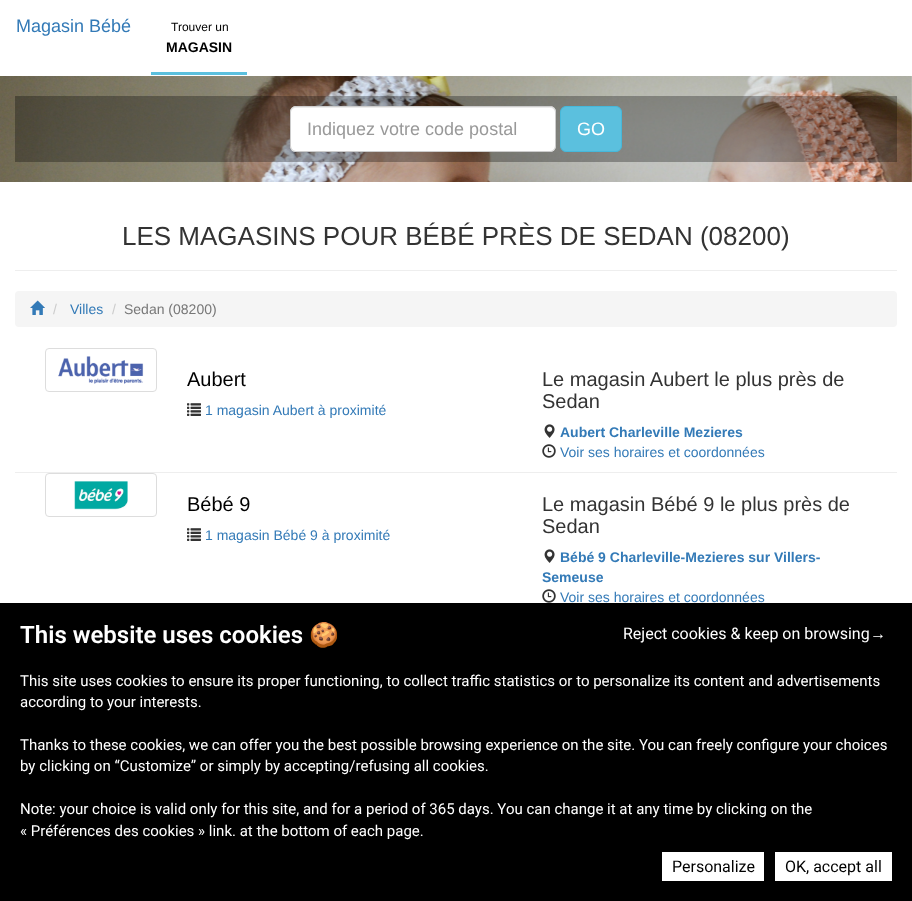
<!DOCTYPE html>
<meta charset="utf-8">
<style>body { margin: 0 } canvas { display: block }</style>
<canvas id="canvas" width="912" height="901"></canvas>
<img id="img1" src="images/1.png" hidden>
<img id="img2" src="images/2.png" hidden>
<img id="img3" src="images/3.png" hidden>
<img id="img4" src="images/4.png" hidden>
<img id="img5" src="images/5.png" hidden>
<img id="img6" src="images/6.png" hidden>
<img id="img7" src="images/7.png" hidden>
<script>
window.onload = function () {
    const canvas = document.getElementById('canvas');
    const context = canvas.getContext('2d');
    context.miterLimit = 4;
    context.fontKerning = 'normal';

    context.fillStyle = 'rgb(255, 255, 255)';
    context.fillRect(0, 0, 912, 901);
    context.fillStyle = 'rgb(91, 192, 222)';
    context.fillRect(151, 72, 96, 3);
    context.drawImage(document.getElementById('img1'), 0, 76, 912, 106);
    context.fillStyle = 'rgba(0, 0, 0, 0.3)';
    context.fillRect(15, 96, 882, 66);
    context.fillStyle = 'rgb(255, 255, 255)';
    context.beginPath();
    context.roundRect(290, 106, 266, 46, 6);
    context.fill();
    context.fillStyle = 'rgb(236, 236, 236)';
    context.beginPath();
    context.moveTo(296, 108);
    context.lineTo(550, 108);
    context.bezierCurveTo(553, 108, 555, 110, 555, 113);
    context.bezierCurveTo(555, 110, 553, 107, 550, 107);
    context.lineTo(296, 107);
    context.bezierCurveTo(293, 107, 291, 110, 291, 113);
    context.bezierCurveTo(291, 110, 293, 108, 296, 108);
    context.closePath();
    context.fill();
    context.beginPath();
    context.roundRect(290.5, 106.5, 265, 45, 5.5);
    context.strokeStyle = 'rgb(204, 204, 204)';
    context.stroke();
    context.fillStyle = 'rgb(91, 192, 222)';
    context.beginPath();
    context.roundRect(560.5, 106.5, 61, 45, 5.5);
    context.fill();
    context.strokeStyle = 'rgb(70, 184, 218)';
    context.stroke();
    context.fillStyle = 'rgb(238, 238, 238)';
    context.fillRect(15, 270, 882, 1);
    context.fillStyle = 'rgb(245, 245, 245)';
    context.beginPath();
    context.roundRect(15, 291, 882, 36, 4);
    context.fill();
    context.drawImage(document.getElementById('img2'), 30, 300, 15, 15);
    context.fillStyle = 'rgb(238, 238, 238)';
    context.fillRect(15, 472, 882, 1);
    context.beginPath();
    context.roundRect(45.5, 348.5, 111, 43, 3.5);
    context.strokeStyle = 'rgb(221, 221, 221)';
    context.stroke();
    context.drawImage(document.getElementById('img3'), 58, 356, 86, 28);
    context.drawImage(document.getElementById('img4'), 187, 403, 14, 13);
    context.drawImage(document.getElementById('img5'), 544, 424, 11, 14);
    context.drawImage(document.getElementById('img6'), 542, 444, 14, 14);
    context.beginPath();
    context.roundRect(45.5, 473.5, 111, 43, 3.5);
    context.stroke();
    context.drawImage(document.getElementById('img7'), 74, 481, 54, 29);
    context.drawImage(document.getElementById('img4'), 187, 528, 14, 13);
    context.drawImage(document.getElementById('img5'), 544, 549, 11, 14);
    context.drawImage(document.getElementById('img6'), 542, 589, 14, 14);
    context.fillStyle = 'rgb(0, 0, 0)';
    context.fillRect(0, 603, 912, 298);
    context.fillStyle = 'rgb(255, 255, 255)';
    context.fillRect(662, 852, 102, 29);
    context.fillRect(775, 852, 117, 29);
    context.font = '18px Liberation Sans';
    context.fillStyle = 'rgb(51, 122, 183)';
    context.fillText('Magasin Bébé', 16, 32);
    context.font = '12px Liberation Sans';
    context.fillStyle = 'rgb(0, 0, 0)';
    context.fillText('Trouver un', 171, 31);
    context.font = 'bold 14px Liberation Sans';
    context.fillText('MAGASIN', 166, 52);
    context.font = '18px Liberation Sans';
    context.fillStyle = 'rgb(153, 153, 153)';
    context.fillText('Indiquez votre code postal', 307, 135);
    context.fillStyle = 'rgb(255, 255, 255)';
    context.fillText('GO', 577, 135);
    context.font = '26px Liberation Sans';
    context.fillStyle = 'rgb(51, 51, 51)';
    context.fillText('LES MAGASINS POUR BÉBÉ PRÈS DE SEDAN (08200)', 122, 245);
    context.font = '14px Liberation Sans';
    context.fillStyle = 'rgb(204, 204, 204)';
    context.fillText('/', 53, 314);
    context.fillStyle = 'rgb(51, 122, 183)';
    context.fillText('Villes', 70, 314);
    context.fillStyle = 'rgb(204, 204, 204)';
    context.fillText('/', 112, 314);
    context.fillStyle = 'rgb(119, 119, 119)';
    context.fillText('Sedan (08200)', 124, 314);
    context.font = '20px Liberation Sans';
    context.fillStyle = 'rgb(0, 0, 0)';
    context.fillText('Aubert', 187, 386);
    context.font = '14px Liberation Sans';
    context.fillStyle = 'rgb(51, 122, 183)';
    context.fillText('1 magasin Aubert à proximité', 205, 415);
    context.font = '20px Liberation Sans';
    context.fillStyle = 'rgb(51, 51, 51)';
    context.fillText('Le magasin Aubert le plus près de', 542, 386);
    context.fillText('Sedan', 542, 408);
    context.font = 'bold 14px Liberation Sans';
    context.fillStyle = 'rgb(51, 122, 183)';
    context.fillText('Aubert Charleville Mezieres', 560, 437);
    context.font = '14px Liberation Sans';
    context.fillText('Voir ses horaires et coordonnées', 560, 457);
    context.font = '20px Liberation Sans';
    context.fillStyle = 'rgb(0, 0, 0)';
    context.fillText('Bébé 9', 187, 511);
    context.font = '14px Liberation Sans';
    context.fillStyle = 'rgb(51, 122, 183)';
    context.fillText('1 magasin Bébé 9 à proximité', 205, 540);
    context.font = '20px Liberation Sans';
    context.fillStyle = 'rgb(51, 51, 51)';
    context.fillText('Le magasin Bébé 9 le plus près de', 542, 511);
    context.fillText('Sedan', 542, 533);
    context.font = 'bold 14px Liberation Sans';
    context.fillStyle = 'rgb(51, 122, 183)';
    context.fillText('Bébé 9 Charleville-Mezieres sur Villers-', 560, 562);
    context.fillText('Semeuse', 542, 582);
    context.font = '14px Liberation Sans';
    context.fillText('Voir ses horaires et coordonnées', 560, 602);
    context.font = '600 24px Roboto';
    context.fillStyle = 'rgb(255, 255, 255)';
    context.fillText('This website uses cookies', 20, 643);
    context.font = '24px Noto Color Emoji';
    context.fillText('🍪', 309, 643);
    context.font = '16px Roboto';
    context.fillText('Reject cookies & keep on browsing', 623, 639);
    context.font = '16px Liberation Sans';
    context.fillText('→', 870, 639);
    context.font = '15px Roboto';
    context.fillText('This site uses cookies to ensure its proper functioning, to collect traffic statistics or to personalize its content and advertisements', 20, 686);
    context.fillText('according to your interests.', 20, 707);
    context.fillText('Thanks to these cookies, we can offer you the best possible browsing experience on the site. You can freely configure your choices', 20, 750);
    context.fillText('by clicking on “Customize” or simply by accepting/refusing all cookies.', 20, 771);
    context.fillText('Note: your choice is valid only for this site, and for a period of 365 days. You can change it at any time by clicking on the', 20, 814);
    context.fillText('« Préférences des cookies » link. at the bottom of each page.', 20, 836);
    context.font = '16px Roboto';
    context.fillStyle = 'rgb(0, 0, 0)';
    context.fillText('Personalize', 672, 872);
    context.fillText('OK, accept all', 785, 872);
};
</script>
